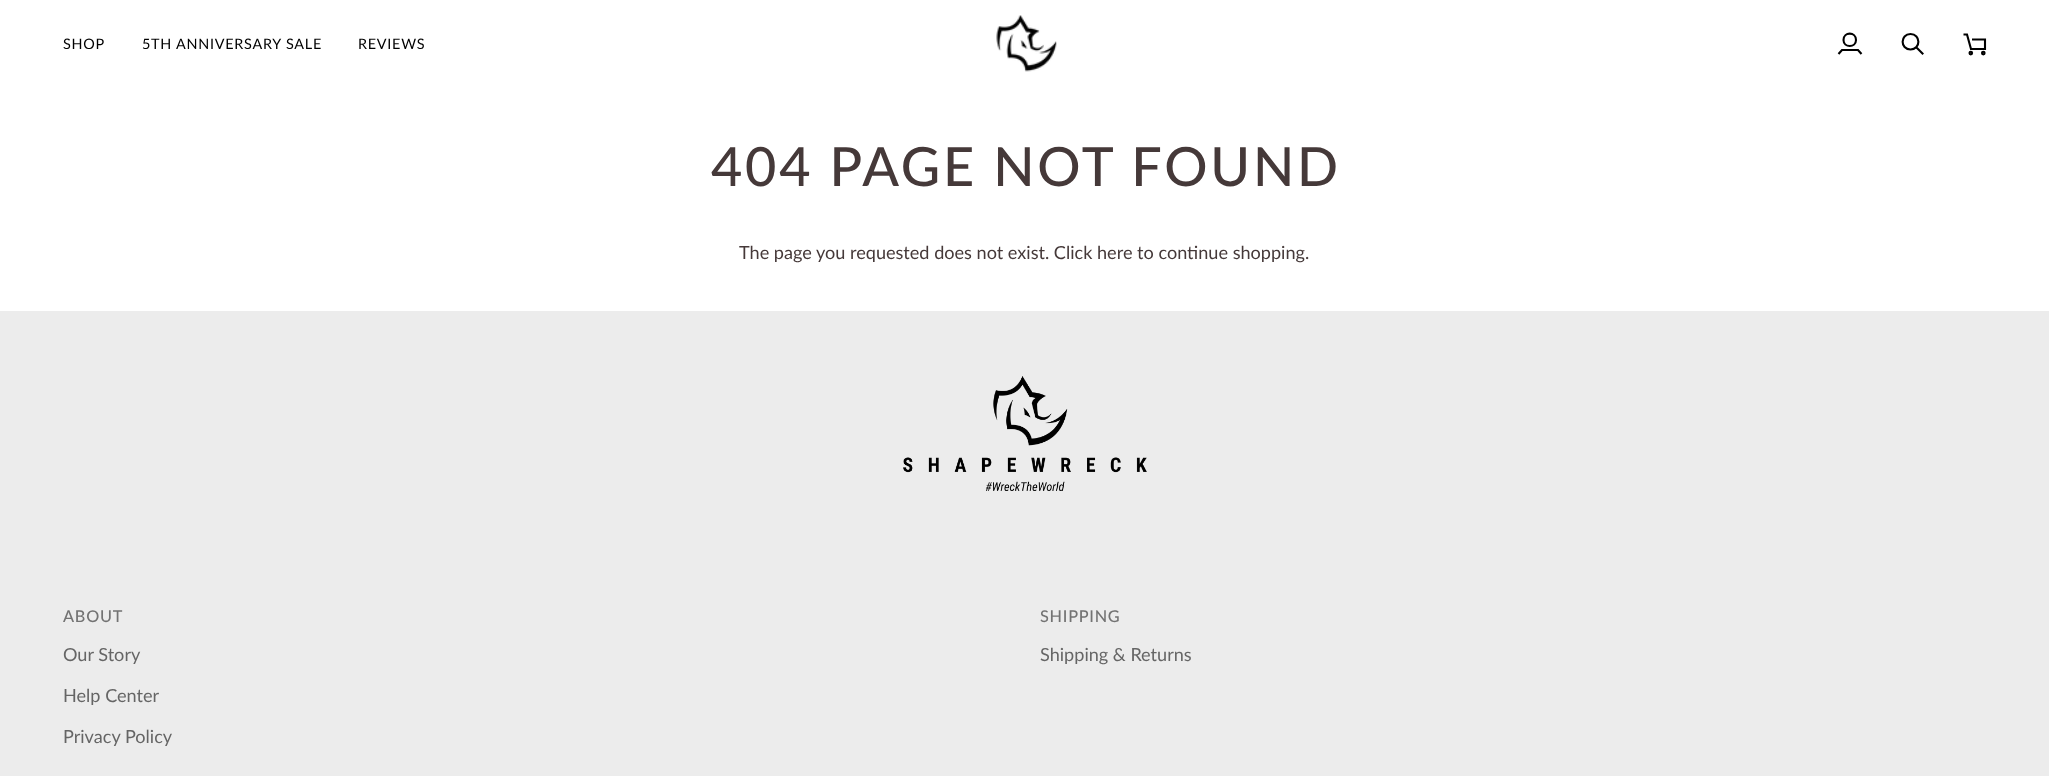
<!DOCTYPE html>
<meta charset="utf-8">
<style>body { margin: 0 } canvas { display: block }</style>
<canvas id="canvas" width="2049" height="776"></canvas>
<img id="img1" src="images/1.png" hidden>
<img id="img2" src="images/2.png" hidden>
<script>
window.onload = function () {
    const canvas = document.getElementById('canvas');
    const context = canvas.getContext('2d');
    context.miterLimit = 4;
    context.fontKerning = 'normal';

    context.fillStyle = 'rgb(255, 255, 255)';
    context.fillRect(0, 0, 2049, 776);
    context.drawImage(document.getElementById('img1'), 996, 15, 61, 57);
    context.beginPath();
    context.moveTo(1838.5, 54);
    context.lineTo(1842, 50);
    context.lineTo(1858, 50);
    context.lineTo(1861.5, 54);
    context.moveTo(1856, 40);
    context.bezierCurveTo(1856, 48, 1843.5, 48, 1843.5, 40);
    context.bezierCurveTo(1843.5, 31.5, 1856, 31.5, 1856, 40);
    context.closePath();
    context.strokeStyle = 'rgb(0, 0, 0)';
    context.lineWidth = 2.1;
    context.stroke();
    context.beginPath();
    context.moveTo(1910.5, 49.5);
    context.bezierCurveTo(1921, 49.5, 1921, 34, 1910.5, 34);
    context.bezierCurveTo(1900, 34, 1900, 49.5, 1910.5, 49.5);
    context.closePath();
    context.moveTo(1922.5, 53.5);
    context.lineTo(1916.5, 47.5);
    context.lineCap = 'square';
    context.stroke();
    context.beginPath();
    context.moveTo(1963.5, 34.5);
    context.lineTo(1967, 34.5);
    context.lineTo(1971, 49);
    context.lineTo(1985, 49);
    context.lineTo(1985, 39.5);
    context.lineTo(1972, 39.5);
    context.lineCap = 'butt';
    context.stroke();
    context.beginPath();
    context.arc(1970.8, 53.1, 1.3, 0, 2 * Math.PI);
    context.stroke();
    context.beginPath();
    context.arc(1983.3, 53.1, 1.3, 0, 2 * Math.PI);
    context.stroke();
    context.fillStyle = 'rgb(236, 236, 236)';
    context.fillRect(0, 311, 2049, 465);
    context.drawImage(document.getElementById('img2'), 903, 376, 244, 115);
    context.letterSpacing = '0.75px';
    context.font = '14.4px Lato';
    context.fillStyle = 'rgb(0, 0, 0)';
    context.fillText('SHOP', 63, 49);
    context.fillText('5TH ANNIVERSARY SALE', 142, 49);
    context.fillText('REVIEWS', 358, 49);
    context.letterSpacing = '2.75px';
    context.font = '500 54px Lato';
    context.fillStyle = 'rgb(69, 57, 57)';
    context.fillText('404 PAGE NOT FOUND', 711, 186);
    context.letterSpacing = '0px';
    context.font = '18.1px Lato';
    context.fillText('The page you requested does not exist. Click here to continue shopping.', 739, 259);
    context.letterSpacing = '0.75px';
    context.font = '500 16.25px Lato';
    context.fillStyle = 'rgb(115, 115, 115)';
    context.fillText('ABOUT', 63, 622);
    context.letterSpacing = '0px';
    context.font = '18.1px Lato';
    context.fillStyle = 'rgb(101, 101, 101)';
    context.fillText('Our Story', 63, 661);
    context.fillText('Help Center', 63, 702);
    context.fillText('Privacy Policy', 63, 743);
    context.letterSpacing = '0.75px';
    context.font = '500 16.25px Lato';
    context.fillStyle = 'rgb(115, 115, 115)';
    context.fillText('SHIPPING', 1040, 622);
    context.letterSpacing = '0px';
    context.font = '18.1px Lato';
    context.fillStyle = 'rgb(101, 101, 101)';
    context.fillText('Shipping & Returns', 1040, 661);
};
</script>
